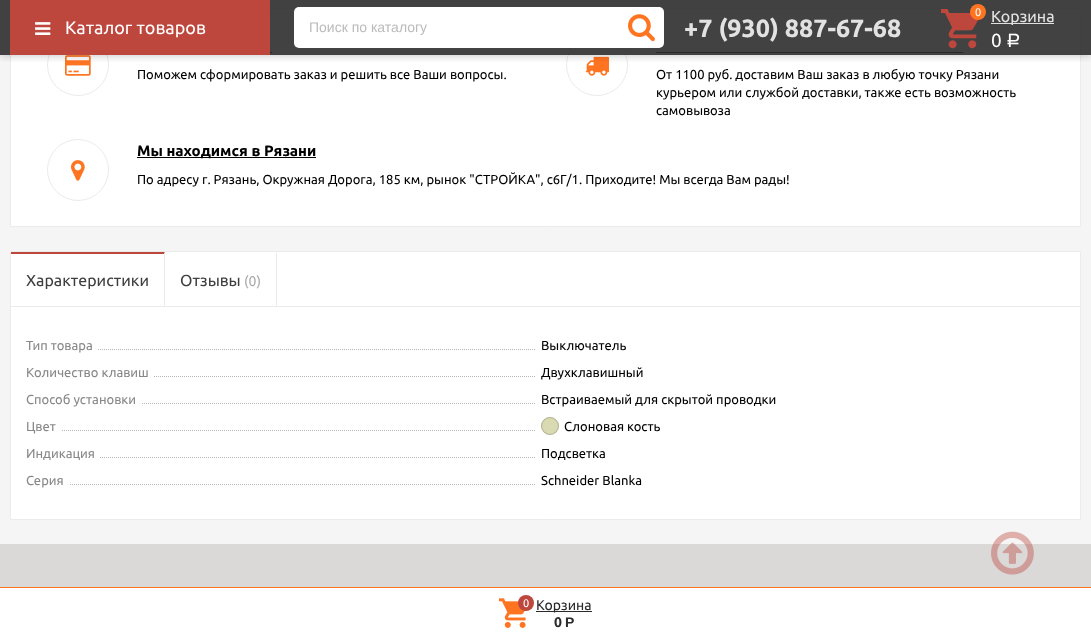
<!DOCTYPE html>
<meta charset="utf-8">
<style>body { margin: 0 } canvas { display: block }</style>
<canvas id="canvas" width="1091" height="634"></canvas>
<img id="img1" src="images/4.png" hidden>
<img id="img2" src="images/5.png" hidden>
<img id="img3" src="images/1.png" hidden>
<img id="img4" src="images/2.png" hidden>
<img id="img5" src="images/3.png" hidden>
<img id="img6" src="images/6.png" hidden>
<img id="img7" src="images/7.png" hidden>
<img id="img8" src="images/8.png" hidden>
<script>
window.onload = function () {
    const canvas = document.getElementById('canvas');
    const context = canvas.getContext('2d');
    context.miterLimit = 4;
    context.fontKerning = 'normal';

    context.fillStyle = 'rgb(245, 245, 246)';
    context.fillRect(0, 0, 1091, 634);
    context.fillStyle = 'rgb(255, 255, 255)';
    context.beginPath();
    context.rect(10.5, 8.5, 1070, 218);
    context.fill();
    context.strokeStyle = 'rgb(235, 235, 235)';
    context.stroke();
    context.beginPath();
    context.arc(78, 65, 30.5, 0, 2 * Math.PI);
    context.stroke();
    context.drawImage(document.getElementById('img1'), 65, 55, 26, 21);
    context.fillStyle = 'rgb(0, 0, 0)';
    context.fillRect(270, 52, 2, 1);
    context.beginPath();
    context.arc(597, 65, 30.5, 0, 2 * Math.PI);
    context.stroke();
    context.drawImage(document.getElementById('img2'), 585, 56, 24, 20);
    context.fillRect(656, 52, 307, 1);
    context.save();
    context.beginPath();
    context.rect(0, 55, 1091, 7);
    context.clip();
    context.fillStyle = 'rgba(0, 0, 0, 0.25)';
    context.filter = 'blur(5px)';
    context.beginPath();
    context.rect(0, 0, 1091, 55);
    context.fill();
    context.filter = 'none';
    context.restore();
    context.fillStyle = 'rgba(46, 46, 46, 0.9)';
    context.fillRect(0, 0, 1091, 55);
    context.fillStyle = 'rgb(189, 70, 61)';
    context.fillRect(10, 0, 260, 55);
    context.drawImage(document.getElementById('img3'), 35, 22, 16, 13);
    context.fillStyle = 'rgb(255, 255, 255)';
    context.beginPath();
    context.roundRect(294, 7, 370, 41, 5);
    context.fill();
    context.drawImage(document.getElementById('img4'), 628, 14, 27, 28);
    context.drawImage(document.getElementById('img5'), 941, 9, 38, 40);
    context.fillStyle = 'rgb(255, 116, 32)';
    context.beginPath();
    context.arc(978, 12, 8, 0, 2 * Math.PI);
    context.fill();
    context.fillStyle = 'rgb(224, 224, 224)';
    context.fillRect(991, 23, 63, 1);
    context.beginPath();
    context.arc(78, 170, 30.5, 0, 2 * Math.PI);
    context.stroke();
    context.drawImage(document.getElementById('img6'), 71, 160, 14, 21);
    context.fillStyle = 'rgb(0, 0, 0)';
    context.fillRect(137, 157, 179, 1);
    context.fillStyle = 'rgb(255, 255, 255)';
    context.beginPath();
    context.rect(10.5, 251.5, 1070, 268);
    context.fill();
    context.stroke();
    context.fillStyle = 'rgb(235, 235, 235)';
    context.fillRect(11, 306, 1069, 1);
    context.fillStyle = 'rgb(189, 70, 61)';
    context.beginPath();
    context.moveTo(11, 252);
    context.lineTo(165, 252);
    context.lineTo(164, 254);
    context.lineTo(11, 254);
    context.closePath();
    context.fill();
    context.fillStyle = 'rgb(235, 235, 235)';
    context.beginPath();
    context.moveTo(165, 252);
    context.lineTo(165, 306);
    context.lineTo(164, 306);
    context.lineTo(164, 254);
    context.closePath();
    context.fill();
    context.beginPath();
    context.moveTo(277, 252);
    context.lineTo(277, 306);
    context.lineTo(276, 306);
    context.lineTo(276, 254);
    context.closePath();
    context.fill();
    context.beginPath();
    context.moveTo(26, 349.5);
    context.lineTo(536, 349.5);
    context.strokeStyle = 'rgb(181, 181, 181)';
    context.setLineDash([1, 1]);
    context.stroke();
    context.fillStyle = 'rgb(255, 255, 255)';
    context.fillRect(26, 349, 71, 1);
    context.beginPath();
    context.moveTo(26, 376.5);
    context.lineTo(536, 376.5);
    context.stroke();
    context.fillRect(26, 376, 127, 1);
    context.beginPath();
    context.moveTo(26, 403.5);
    context.lineTo(536, 403.5);
    context.stroke();
    context.fillRect(26, 403, 115, 1);
    context.beginPath();
    context.moveTo(26, 430.5);
    context.lineTo(536, 430.5);
    context.stroke();
    context.fillRect(26, 430, 35, 1);
    context.fillStyle = 'rgb(217, 217, 178)';
    context.beginPath();
    context.arc(550, 426, 9, 0, 2 * Math.PI);
    context.fill();
    context.beginPath();
    context.arc(550, 426, 8.5, 0, 2 * Math.PI);
    context.strokeStyle = 'rgba(0, 0, 0, 0.2)';
    context.setLineDash([]);
    context.stroke();
    context.beginPath();
    context.moveTo(26, 457.5);
    context.lineTo(536, 457.5);
    context.strokeStyle = 'rgb(181, 181, 181)';
    context.setLineDash([1, 1]);
    context.stroke();
    context.fillStyle = 'rgb(255, 255, 255)';
    context.fillRect(26, 457, 73, 1);
    context.beginPath();
    context.moveTo(26, 484.5);
    context.lineTo(536, 484.5);
    context.stroke();
    context.fillRect(26, 484, 43, 1);
    context.fillStyle = 'rgb(219, 216, 216)';
    context.fillRect(0, 544, 1091, 43);
    context.drawImage(document.getElementById('img7'), 991, 531, 43, 44);
    context.fillStyle = 'rgb(255, 255, 255)';
    context.fillRect(0, 588, 1091, 46);
    context.fillStyle = 'rgb(255, 116, 32)';
    context.fillRect(0, 587, 1091, 1);
    context.drawImage(document.getElementById('img8'), 499, 598, 27, 30);
    context.fillStyle = 'rgb(189, 70, 61)';
    context.beginPath();
    context.arc(526, 603, 8, 0, 2 * Math.PI);
    context.fill();
    context.fillStyle = 'rgb(43, 43, 43)';
    context.fillRect(536, 611, 56, 1);
    context.font = '18px Ubuntu';
    context.fillStyle = 'rgb(255, 255, 255)';
    context.fillText('Каталог товаров', 65, 34);
    context.font = '14px Liberation Sans';
    context.fillStyle = 'rgb(187, 187, 187)';
    context.fillText('Поиск по каталогу', 309, 32);
    context.font = 'bold 25px Ubuntu';
    context.fillStyle = 'rgb(226, 226, 226)';
    context.fillText('+7 (930) 887-67-68', 684, 37);
    context.font = '11px Ubuntu';
    context.fillStyle = 'rgb(255, 255, 255)';
    context.fillText('0', 975, 16);
    context.font = '16px Ubuntu';
    context.fillStyle = 'rgb(226, 226, 226)';
    context.fillText('Корзина', 991, 22);
    context.font = '19px Ubuntu';
    context.fillStyle = 'rgb(255, 255, 255)';
    context.fillText('0', 991, 47);
    context.font = '19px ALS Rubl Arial';
    context.fillText('Р', 1006, 47);
    context.font = '13px Ubuntu';
    context.fillStyle = 'rgb(0, 0, 0)';
    context.fillText('Поможем сформировать заказ и решить все Ваши вопросы.', 137, 79);
    context.fillText('От 1100 руб. доставим Ваш заказ в любую точку Рязани', 656, 79);
    context.fillText('курьером или службой доставки, также есть возможность', 656, 97);
    context.fillText('самовывоза', 656, 115);
    context.font = 'bold 15px Ubuntu';
    context.fillText('Мы находимся в Рязани', 137, 156);
    context.font = '13px Ubuntu';
    context.fillText('По адресу г. Рязань, Окружная Дорога, 185 км, рынок "СТРОЙКА", с6Г/1. Приходите! Мы всегда Вам рады!', 137, 184);
    context.font = '16px Ubuntu';
    context.fillStyle = 'rgb(63, 63, 63)';
    context.fillText('Характеристики', 26, 286);
    context.fillText('Отзывы', 180, 286);
    context.font = '14px Ubuntu';
    context.fillStyle = 'rgb(170, 170, 170)';
    context.fillText('(0)', 244, 286);
    context.font = '13px Ubuntu';
    context.fillStyle = 'rgb(136, 136, 136)';
    context.fillText('Тип товара', 26, 350);
    context.fillStyle = 'rgb(0, 0, 0)';
    context.fillText('Выключатель', 541, 350);
    context.fillStyle = 'rgb(136, 136, 136)';
    context.fillText('Количество клавиш', 26, 377);
    context.fillStyle = 'rgb(0, 0, 0)';
    context.fillText('Двухклавишный', 541, 377);
    context.fillStyle = 'rgb(136, 136, 136)';
    context.fillText('Способ установки', 26, 404);
    context.fillStyle = 'rgb(0, 0, 0)';
    context.fillText('Встраиваемый для скрытой проводки', 541, 404);
    context.fillStyle = 'rgb(136, 136, 136)';
    context.fillText('Цвет', 26, 431);
    context.fillStyle = 'rgb(0, 0, 0)';
    context.fillText('Слоновая кость', 564, 431);
    context.fillStyle = 'rgb(136, 136, 136)';
    context.fillText('Индикация', 26, 458);
    context.fillStyle = 'rgb(0, 0, 0)';
    context.fillText('Подсветка', 541, 458);
    context.fillStyle = 'rgb(136, 136, 136)';
    context.fillText('Серия', 26, 485);
    context.fillStyle = 'rgb(0, 0, 0)';
    context.fillText('Schneider Blanka', 541, 485);
    context.font = '11px Ubuntu';
    context.fillStyle = 'rgb(255, 255, 255)';
    context.fillText('0', 523, 607);
    context.font = '14px Ubuntu';
    context.fillStyle = 'rgb(43, 43, 43)';
    context.fillText('Корзина', 536, 610);
    context.font = 'bold 14px Ubuntu';
    context.fillText('0', 554, 627);
    context.font = 'bold 14px Liberation Sans';
    context.fillText('Р', 565, 627);
};
</script>
